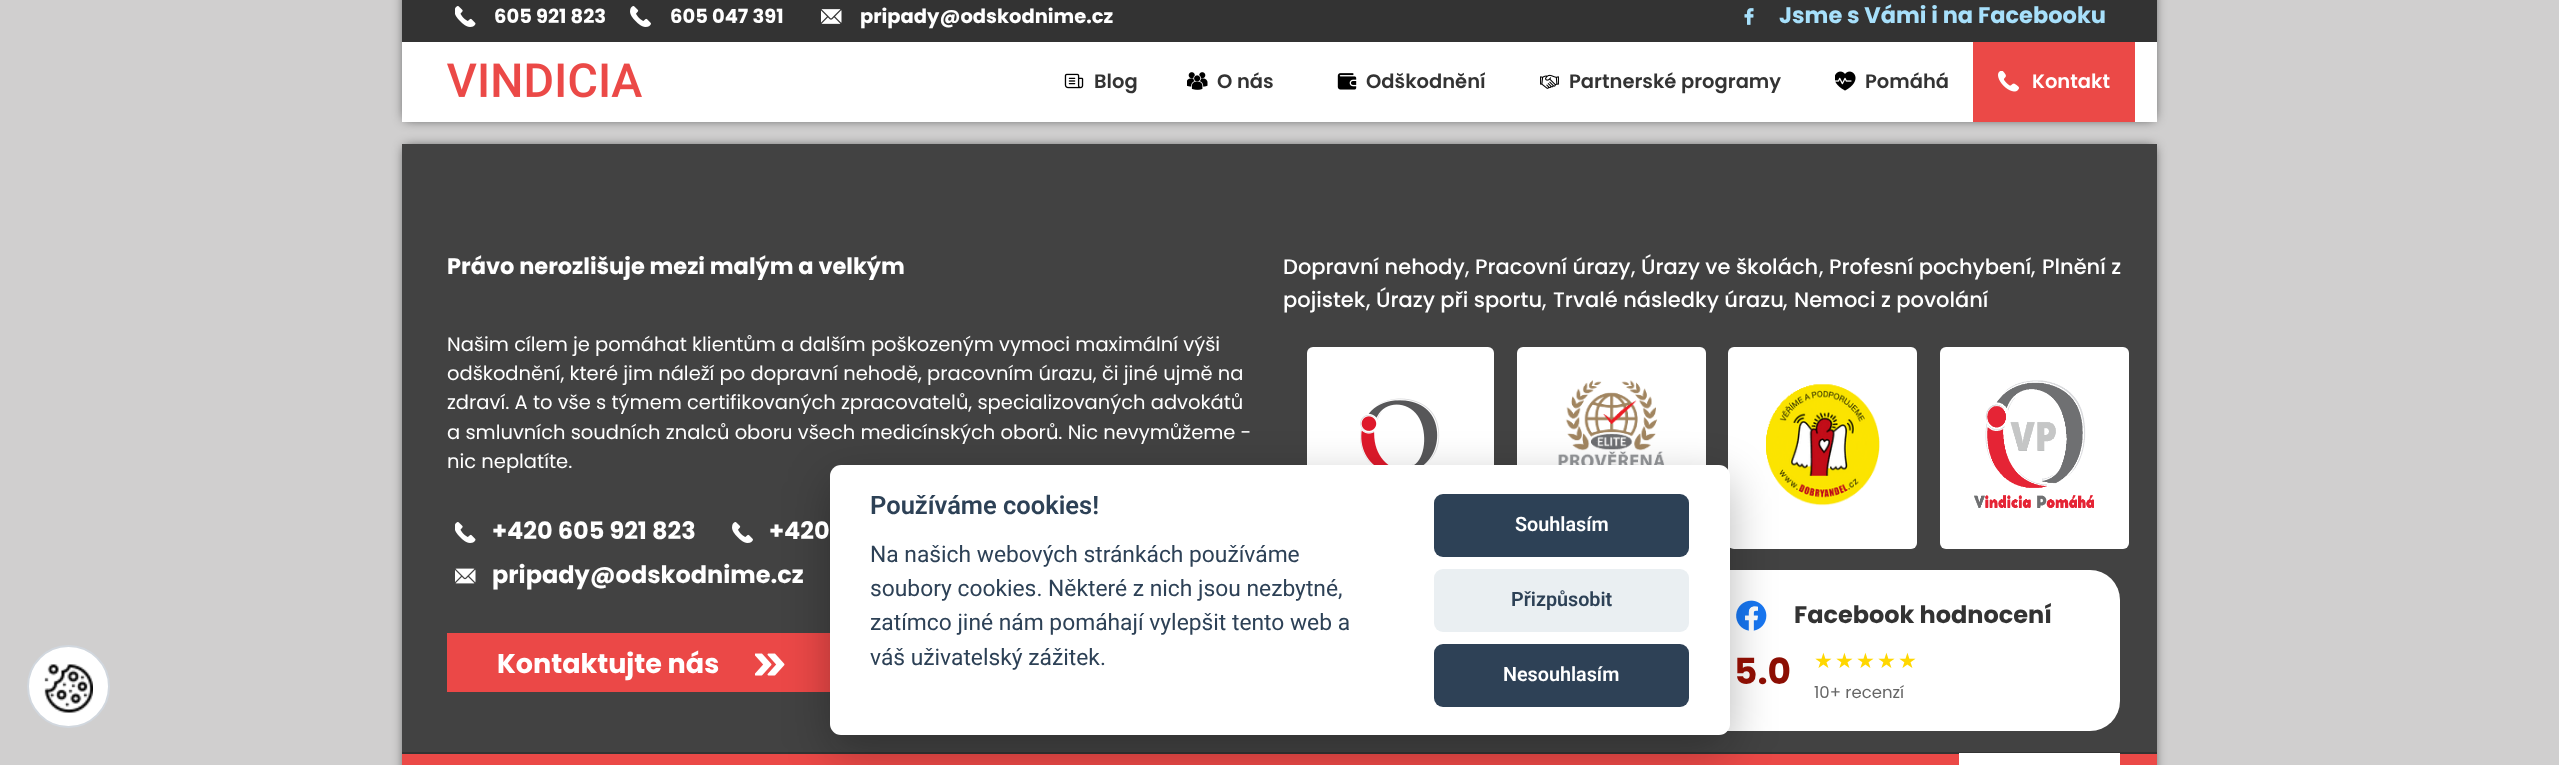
<!DOCTYPE html>
<meta charset="utf-8">
<style>body { margin: 0 } canvas { display: block }</style>
<canvas id="canvas" width="2559" height="765"></canvas>
<img id="img1" src="images/1.png" hidden>
<img id="img2" src="images/2.png" hidden>
<img id="img3" src="images/3.png" hidden>
<img id="img4" src="images/4.png" hidden>
<img id="img5" src="images/5.png" hidden>
<img id="img6" src="images/6.png" hidden>
<img id="img7" src="images/7.png" hidden>
<img id="img8" src="images/8.png" hidden>
<img id="img9" src="images/9.png" hidden>
<img id="img10" src="images/10.png" hidden>
<img id="img11" src="images/11.png" hidden>
<img id="img12" src="images/12.png" hidden>
<img id="img13" src="images/13.png" hidden>
<img id="img14" src="images/14.png" hidden>
<img id="img15" src="images/15.png" hidden>
<img id="img16" src="images/16.png" hidden>
<img id="img17" src="images/17.png" hidden>
<img id="img18" src="images/18.png" hidden>
<img id="img19" src="images/19.png" hidden>
<img id="img20" src="images/20.png" hidden>
<img id="img21" src="images/21.png" hidden>
<script>
window.onload = function () {
    const canvas = document.getElementById('canvas');
    const context = canvas.getContext('2d');
    context.miterLimit = 4;
    context.fontKerning = 'normal';

    context.fillStyle = 'rgb(208, 207, 207)';
    context.fillRect(0, 0, 2559, 765);
    context.fillStyle = 'rgb(51, 51, 51)';
    context.filter = 'blur(6px)';
    context.beginPath();
    context.rect(405, -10, 1749, 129);
    context.fill();
    context.filter = 'none';
    context.fillStyle = 'rgb(255, 255, 255)';
    context.fillRect(402, 42, 1755, 80);
    context.fillStyle = 'rgb(51, 51, 51)';
    context.fillRect(402, 0, 1755, 42);
    context.drawImage(document.getElementById('img1'), 455, 6, 21, 21);
    context.drawImage(document.getElementById('img2'), 630, 6, 21, 21);
    context.drawImage(document.getElementById('img3'), 821, 9, 21, 15);
    context.drawImage(document.getElementById('img4'), 1744, 8, 10, 17);
    context.drawImage(document.getElementById('img5'), 447, 63, 195, 35);
    context.drawImage(document.getElementById('img6'), 1064, 73, 20, 16);
    context.drawImage(document.getElementById('img7'), 1187, 72, 21, 18);
    context.drawImage(document.getElementById('img8'), 1337, 73, 20, 17);
    context.drawImage(document.getElementById('img9'), 1540, 74, 19, 15);
    context.drawImage(document.getElementById('img10'), 1835, 71, 21, 20);
    context.fillStyle = 'rgb(235, 73, 71)';
    context.fillRect(1973, 42, 162, 80);
    context.drawImage(document.getElementById('img11'), 1998, 71, 21, 21);
    context.fillStyle = 'rgb(51, 51, 51)';
    context.filter = 'blur(6px)';
    context.beginPath();
    context.rect(405, 147, 1749, 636);
    context.fill();
    context.filter = 'none';
    context.fillStyle = 'rgb(66, 66, 66)';
    context.fillRect(402, 144, 1755, 608);
    context.drawImage(document.getElementById('img12'), 455, 522, 21, 21);
    context.drawImage(document.getElementById('img13'), 732, 522, 21, 21);
    context.drawImage(document.getElementById('img14'), 455, 568, 21, 16);
    context.fillStyle = 'rgb(235, 72, 71)';
    context.fillRect(447, 633, 383, 59);
    context.drawImage(document.getElementById('img15'), 755, 653, 30, 23);
    context.fillStyle = 'rgb(255, 255, 255)';
    context.beginPath();
    context.roundRect(1307, 347, 187, 202, 6);
    context.fill();
    context.drawImage(document.getElementById('img16'), 1360, 398, 80, 67);
    context.beginPath();
    context.roundRect(1517, 347, 189, 196, 6);
    context.fill();
    context.drawImage(document.getElementById('img17'), 1558, 380, 107, 85);
    context.beginPath();
    context.roundRect(1728, 347, 189, 202, 6);
    context.fill();
    context.drawImage(document.getElementById('img18'), 1766, 384, 114, 122);
    context.beginPath();
    context.roundRect(1940, 347, 189, 202, 6);
    context.fill();
    context.drawImage(document.getElementById('img19'), 1974, 380, 120, 128);
    context.beginPath();
    context.roundRect(1307, 570, 813, 161, 30);
    context.fill();
    context.drawImage(document.getElementById('img20'), 1736, 600, 31, 31);
    context.fillStyle = 'rgb(235, 73, 71)';
    context.fillRect(402, 754, 1755, 11);
    context.fillStyle = 'rgb(51, 51, 51)';
    context.fillRect(402, 752, 1755, 2);
    context.fillStyle = 'rgb(255, 255, 255)';
    context.fillRect(1959, 753, 161, 12);
    context.beginPath();
    context.arc(68.5, 686.5, 40.5, 0, 2 * Math.PI);
    context.fill();
    context.strokeStyle = 'rgb(209, 215, 222)';
    context.lineWidth = 2;
    context.stroke();
    context.drawImage(document.getElementById('img21'), 44, 664, 49, 49);
    context.fillStyle = 'rgba(2, 2, 3, 0.28)';
    context.filter = 'blur(22.5px)';
    context.beginPath();
    context.roundRect(830, 480, 900, 270, 11);
    context.fill();
    context.filter = 'none';
    context.fillStyle = 'rgb(255, 255, 255)';
    context.beginPath();
    context.roundRect(830, 465, 900, 270, 11);
    context.fill();
    context.fillStyle = 'rgb(45, 65, 86)';
    context.beginPath();
    context.roundRect(1434, 494, 255, 63, 9);
    context.fill();
    context.fillStyle = 'rgb(234, 239, 242)';
    context.beginPath();
    context.roundRect(1434, 569, 255, 63, 9);
    context.fill();
    context.fillStyle = 'rgb(46, 65, 86)';
    context.beginPath();
    context.roundRect(1434, 644, 255, 63, 9);
    context.fill();
    context.font = 'bold 19.5px Poppins';
    context.fillStyle = 'rgb(255, 255, 255)';
    context.fillText('605 921 823', 494, 23);
    context.fillText('605 047 391', 670, 23);
    context.fillText('pripady@odskodnime.cz', 860, 23);
    context.font = 'bold 22.5px Poppins';
    context.fillStyle = 'rgb(167, 224, 251)';
    context.fillText('Jsme s Vámi i na Facebooku', 1779, 23);
    context.font = '600 19.5px Poppins';
    context.fillStyle = 'rgb(51, 51, 51)';
    context.fillText('Blog', 1094, 88);
    context.fillText('O nás', 1217, 88);
    context.fillText('Odškodnění', 1366, 88);
    context.fillText('Partnerské programy', 1569, 88);
    context.fillText('Pomáhá', 1865, 88);
    context.fillStyle = 'rgb(255, 255, 255)';
    context.fillText('Kontakt', 2032, 88);
    context.font = 'bold 22.5px Poppins';
    context.fillText('Právo nerozlišuje mezi malým a velkým', 447, 274);
    context.font = '19.5px Poppins';
    context.fillText('Našim cílem je pomáhat klientům a dalším poškozeným vymoci maximální výši', 447, 351);
    context.fillText('odškodnění, které jim náleží po dopravní nehodě, pracovním úrazu, či jiné ujmě na', 447, 380);
    context.fillText('zdraví. A to vše s týmem certifikovaných zpracovatelů, specializovaných advokátů', 447, 409);
    context.fillText('a smluvních soudních znalců oboru všech medicínských oborů. Nic nevymůžeme -', 447, 439);
    context.fillText('nic neplatíte.', 447, 468);
    context.font = 'bold 24px Poppins';
    context.fillText('+420 605 921 823', 492, 539);
    context.fillText('+420', 769, 539);
    context.fillText('pripady@odskodnime.cz', 492, 583);
    context.font = 'bold 27px Poppins';
    context.fillText('Kontaktujte nás', 497, 673);
    context.font = '500 21px Poppins';
    context.fillText('Dopravní nehody', 1283, 274);
    context.font = '22.5px Poppins';
    context.fillText(',', 1465, 274);
    context.font = '500 21px Poppins';
    context.fillText('Pracovní úrazy', 1475, 274);
    context.font = '22.5px Poppins';
    context.fillText(',', 1631, 274);
    context.font = '500 21px Poppins';
    context.fillText('Úrazy ve školách', 1641, 274);
    context.font = '22.5px Poppins';
    context.fillText(',', 1819, 274);
    context.font = '500 21px Poppins';
    context.fillText('Profesní pochybení', 1829, 274);
    context.font = '22.5px Poppins';
    context.fillText(',', 2031, 274);
    context.font = '500 21px Poppins';
    context.fillText('Plnění z', 2042, 274);
    context.fillText('pojistek', 1283, 307);
    context.font = '22.5px Poppins';
    context.fillText(',', 1366, 307);
    context.font = '500 21px Poppins';
    context.fillText('Úrazy při sportu', 1376, 307);
    context.font = '22.5px Poppins';
    context.fillText(',', 1542, 307);
    context.font = '500 21px Poppins';
    context.fillText('Trvalé následky úrazu', 1553, 307);
    context.font = '22.5px Poppins';
    context.fillText(',', 1783, 307);
    context.font = '500 21px Poppins';
    context.fillText('Nemoci z povolání', 1794, 307);
    context.font = 'bold 24px Poppins';
    context.fillStyle = 'rgb(51, 51, 51)';
    context.fillText('Facebook hodnocení', 1794, 623);
    context.font = 'bold 36px Poppins';
    context.fillStyle = 'rgb(140, 14, 3)';
    context.fillText('5.0', 1734, 684);
    context.font = '21px DejaVu Sans';
    context.fillStyle = 'rgb(255, 215, 0)';
    context.fillText('★', 1814, 668);
    context.fillText('★', 1835, 668);
    context.fillText('★', 1856, 668);
    context.fillText('★', 1877, 668);
    context.fillText('★', 1898, 668);
    context.font = '16.5px Poppins';
    context.fillStyle = 'rgb(102, 102, 102)';
    context.fillText('10+ recenzí', 1814, 698);
    context.font = '600 25.5px Roboto';
    context.fillStyle = 'rgb(45, 65, 86)';
    context.fillText('Používáme cookies!', 870, 514);
    context.font = '22.8px Roboto';
    context.fillText('Na našich webových stránkách používáme', 870, 562);
    context.fillText('soubory cookies. Některé z nich jsou nezbytné,', 870, 596);
    context.fillText('zatímco jiné nám pomáhají vylepšit tento web a', 870, 630);
    context.fillText('váš uživatelský zážitek.', 870, 665);
    context.font = '600 19.75px Roboto';
    context.fillStyle = 'rgb(255, 255, 255)';
    context.fillText('Souhlasím', 1515, 531);
    context.fillStyle = 'rgb(45, 65, 86)';
    context.fillText('Přizpůsobit', 1511, 606);
    context.fillStyle = 'rgb(255, 255, 255)';
    context.fillText('Nesouhlasím', 1503, 681);
};
</script>
